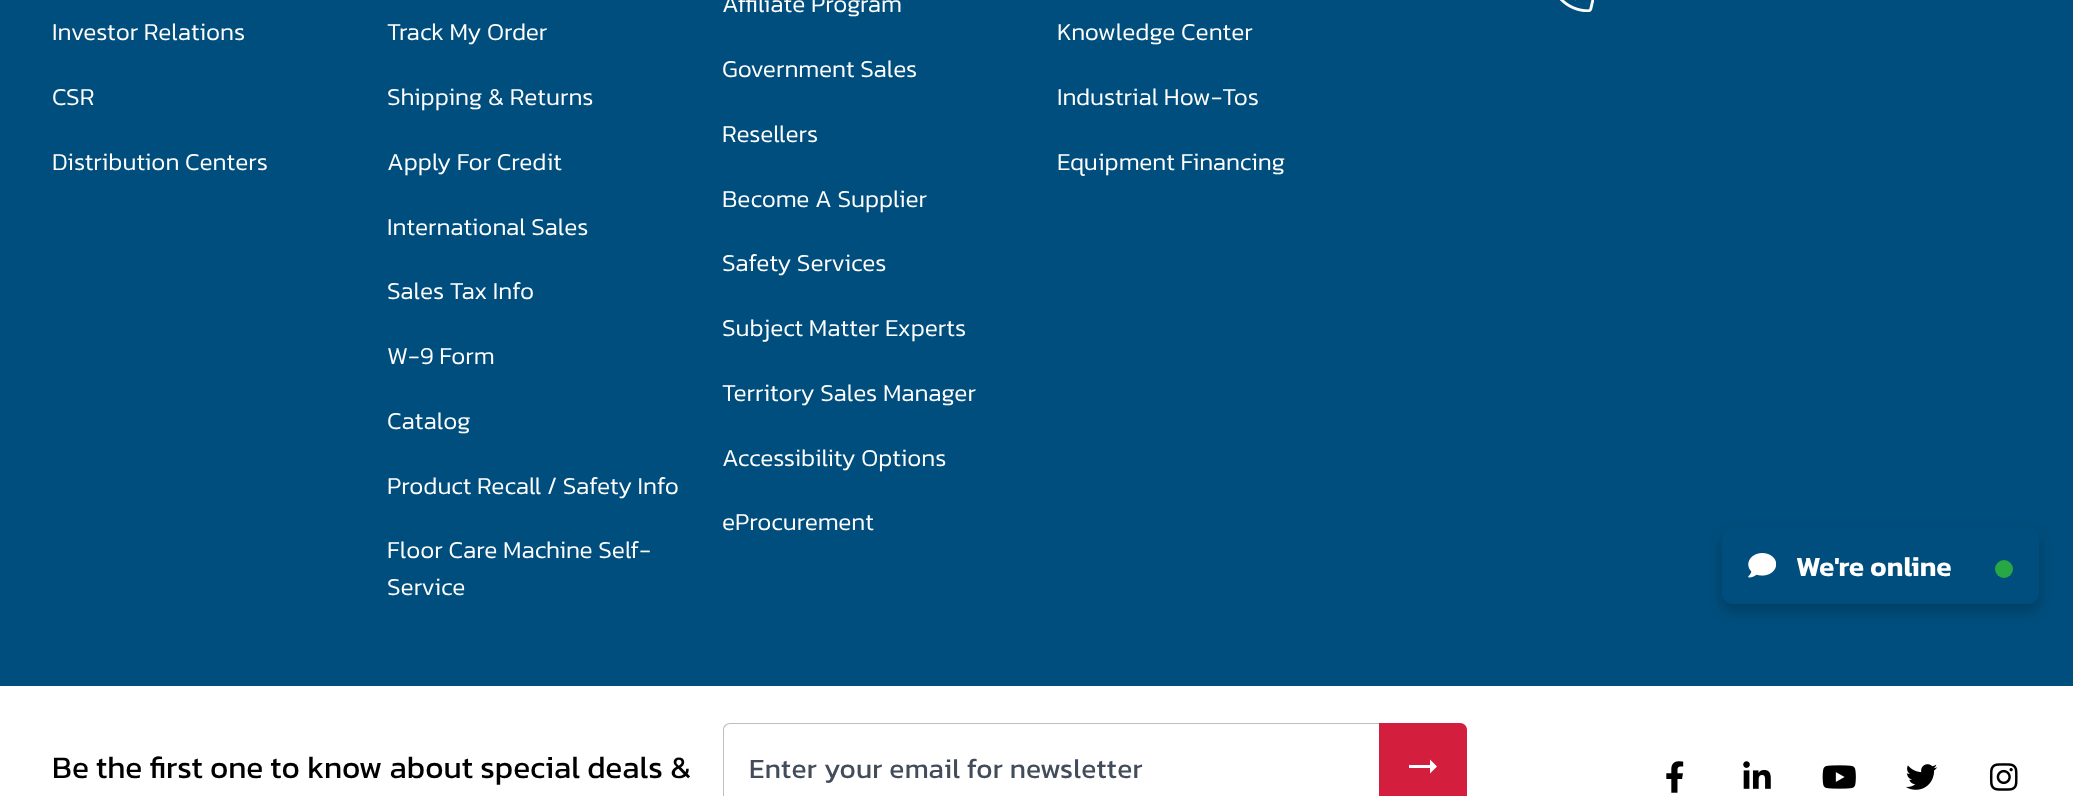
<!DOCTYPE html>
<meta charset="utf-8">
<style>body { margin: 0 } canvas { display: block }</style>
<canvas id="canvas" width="2073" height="796"></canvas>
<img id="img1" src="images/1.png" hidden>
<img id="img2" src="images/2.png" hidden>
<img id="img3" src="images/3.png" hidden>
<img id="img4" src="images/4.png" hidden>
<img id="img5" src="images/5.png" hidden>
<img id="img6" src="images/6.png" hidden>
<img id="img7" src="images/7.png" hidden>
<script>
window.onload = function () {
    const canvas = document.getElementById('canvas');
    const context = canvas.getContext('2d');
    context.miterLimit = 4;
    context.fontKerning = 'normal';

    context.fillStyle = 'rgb(255, 255, 255)';
    context.fillRect(0, 0, 2073, 796);
    context.fillStyle = 'rgb(0, 78, 125)';
    context.fillRect(0, 0, 2073, 686);
    context.drawImage(document.getElementById('img1'), 1559, 0, 35, 12);
    context.fillStyle = 'rgb(188, 190, 192)';
    context.beginPath();
    context.moveTo(730, 723);
    context.lineTo(1379, 723);
    context.bezierCurveTo(1383, 723, 1386, 726, 1386, 730);
    context.lineTo(1386, 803);
    context.bezierCurveTo(1386, 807, 1383, 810, 1379, 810);
    context.lineTo(730, 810);
    context.bezierCurveTo(726, 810, 723, 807, 723, 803);
    context.lineTo(723, 730);
    context.bezierCurveTo(723, 726, 726, 723, 730, 723);
    context.closePath();
    context.moveTo(730, 724);
    context.lineTo(1379, 724);
    context.bezierCurveTo(1383, 724, 1386, 727, 1386, 730);
    context.lineTo(1386, 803);
    context.bezierCurveTo(1386, 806, 1383, 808, 1379, 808);
    context.lineTo(730, 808);
    context.bezierCurveTo(727, 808, 724, 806, 724, 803);
    context.lineTo(724, 730);
    context.bezierCurveTo(724, 727, 727, 724, 730, 724);
    context.closePath();
    context.fill('evenodd');
    context.fillStyle = 'rgb(212, 30, 61)';
    context.beginPath();
    context.moveTo(1379, 723);
    context.lineTo(1460, 723);
    context.bezierCurveTo(1464, 723, 1467, 726, 1467, 730);
    context.lineTo(1467, 796);
    context.bezierCurveTo(1467, 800, 1464, 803, 1460, 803);
    context.lineTo(1379, 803);
    context.closePath();
    context.fill();
    context.fillStyle = 'rgb(255, 255, 255)';
    context.beginPath();
    context.moveTo(1430, 765);
    context.lineTo(1409, 765);
    context.lineTo(1409, 768);
    context.lineTo(1430, 768);
    context.lineTo(1430, 773.5);
    context.lineTo(1437, 766.5);
    context.lineTo(1430, 759.5);
    context.closePath();
    context.fill();
    context.drawImage(document.getElementById('img2'), 1666, 761, 18, 32);
    context.drawImage(document.getElementById('img3'), 1743, 761, 28, 28);
    context.drawImage(document.getElementById('img4'), 1822, 765, 34, 24);
    context.drawImage(document.getElementById('img5'), 1906, 764, 32, 26);
    context.drawImage(document.getElementById('img6'), 1989, 763, 29, 28);
    context.fillStyle = 'rgba(0, 0, 0, 0.2)';
    context.filter = 'blur(7px)';
    context.beginPath();
    context.roundRect(1722, 534, 317, 77, 11);
    context.fill();
    context.filter = 'none';
    context.fillStyle = 'rgb(0, 78, 125)';
    context.beginPath();
    context.roundRect(1722, 527, 317, 77, 11);
    context.fill();
    context.drawImage(document.getElementById('img7'), 1748, 553, 28, 25);
    context.fillStyle = 'rgb(40, 167, 69)';
    context.beginPath();
    context.arc(2004, 569, 9, 0, 2 * Math.PI);
    context.fill();
    context.font = '300 24.5px Kanit';
    context.fillStyle = 'rgb(255, 255, 255)';
    context.fillText('Affiliate Program', 722, 12);
    context.fillText('Government Sales', 722, 77);
    context.fillText('Resellers', 722, 142);
    context.fillText('Become A Supplier', 722, 207);
    context.fillText('Safety Services', 722, 271);
    context.fillText('Subject Matter Experts', 722, 336);
    context.fillText('Territory Sales Manager', 722, 401);
    context.fillText('Accessibility Options', 722, 466);
    context.fillText('eProcurement', 722, 530);
    context.fillText('Investor Relations', 52, 40);
    context.fillText('CSR', 52, 105);
    context.fillText('Distribution Centers', 52, 170);
    context.fillText('Track My Order', 387, 40);
    context.fillText('Shipping & Returns', 387, 105);
    context.fillText('Apply For Credit', 387, 170);
    context.fillText('International Sales', 387, 235);
    context.fillText('Sales Tax Info', 387, 299);
    context.fillText('W-9 Form', 387, 364);
    context.fillText('Catalog', 387, 429);
    context.fillText('Product Recall / Safety Info', 387, 494);
    context.fillText('Floor Care Machine Self-', 387, 558);
    context.fillText('Service', 387, 595);
    context.fillText('Knowledge Center', 1057, 40);
    context.fillText('Industrial How-Tos', 1057, 105);
    context.fillText('Equipment Financing', 1057, 170);
    context.font = '31.5px Kanit';
    context.fillStyle = 'rgb(0, 0, 0)';
    context.fillText('Be the first one to know about special deals &', 52, 778);
    context.letterSpacing = '0.25px';
    context.font = '28px Kanit';
    context.fillStyle = 'rgb(66, 76, 91)';
    context.fillText('Enter your email for newsletter', 749, 778);
    context.letterSpacing = '0px';
    context.font = '600 28px Kanit';
    context.fillStyle = 'rgb(255, 255, 255)';
    context.fillText('We\'re online', 1796, 576);
};
</script>
